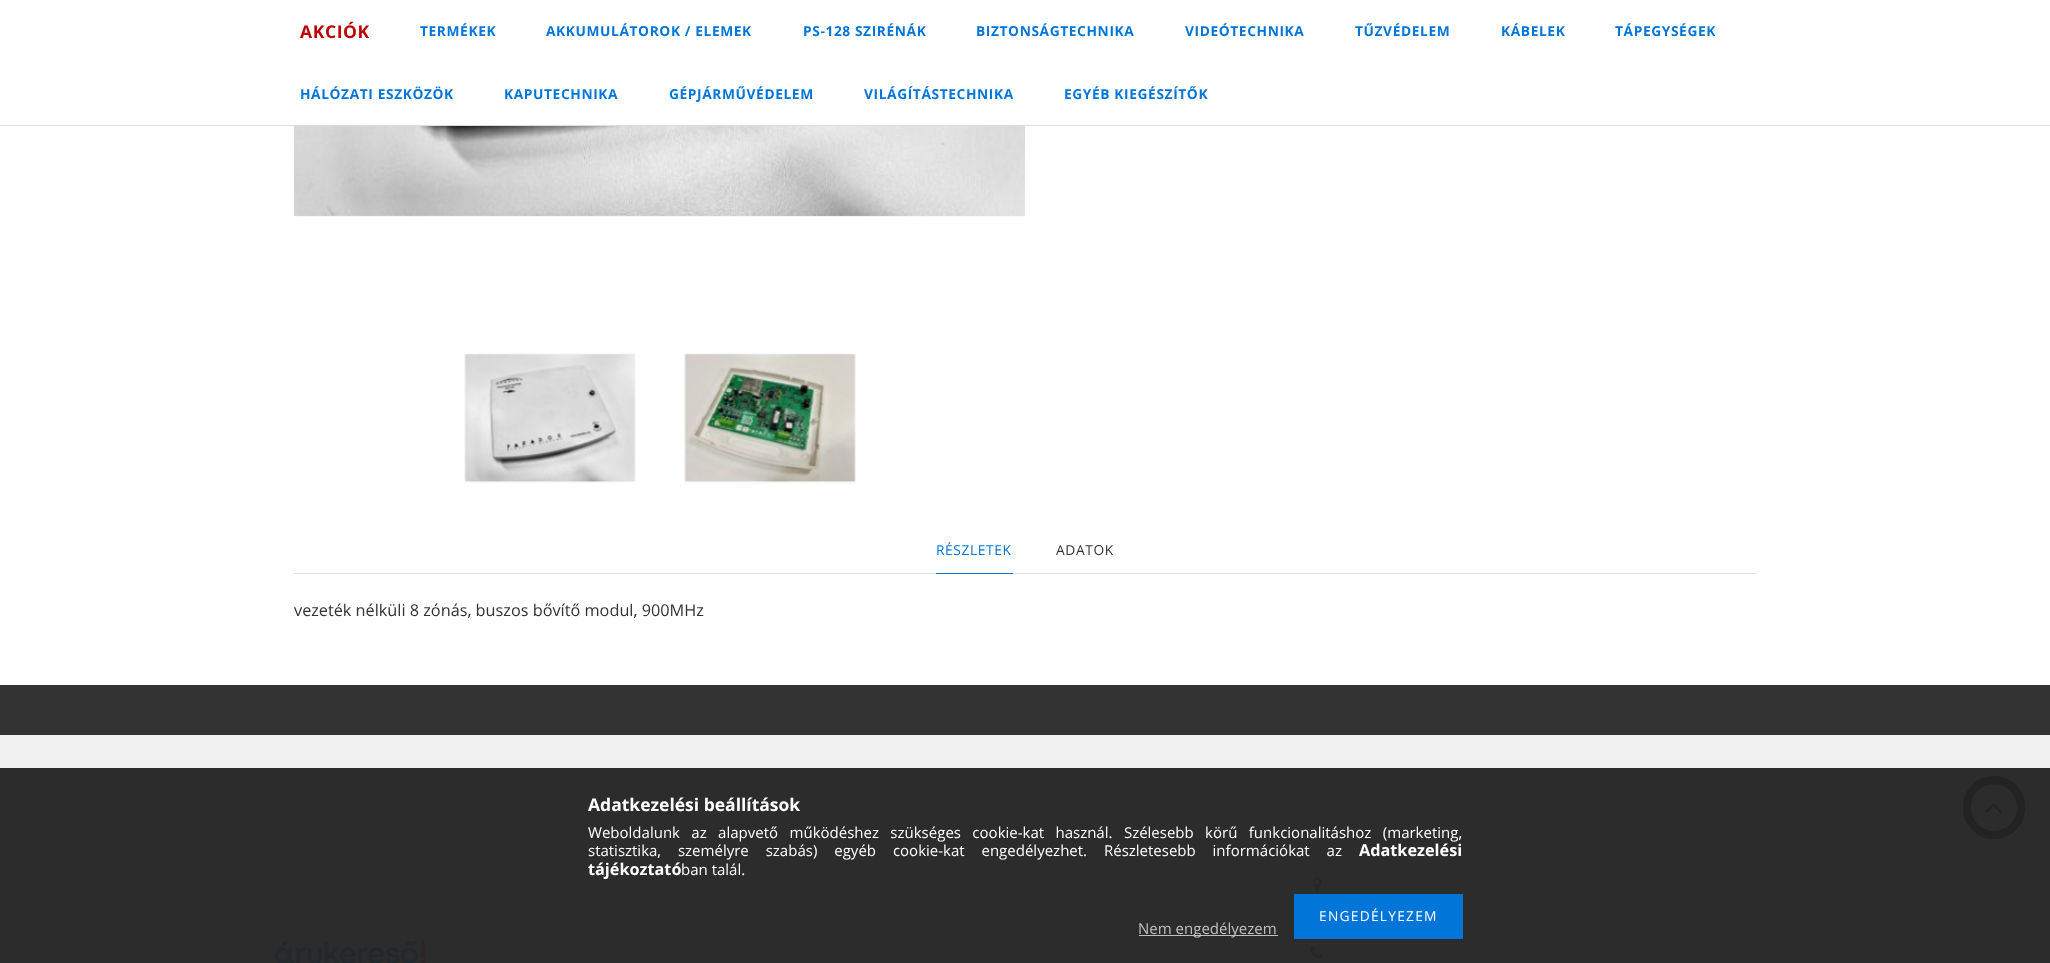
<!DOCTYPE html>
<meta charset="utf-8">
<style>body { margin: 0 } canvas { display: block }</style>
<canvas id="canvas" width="2050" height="963"></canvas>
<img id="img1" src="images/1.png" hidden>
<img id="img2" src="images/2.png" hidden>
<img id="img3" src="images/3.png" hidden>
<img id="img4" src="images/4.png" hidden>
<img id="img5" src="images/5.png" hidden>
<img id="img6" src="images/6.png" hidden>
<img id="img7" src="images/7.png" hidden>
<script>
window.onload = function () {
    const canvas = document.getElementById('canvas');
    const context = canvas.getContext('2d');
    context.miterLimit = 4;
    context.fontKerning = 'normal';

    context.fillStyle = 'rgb(255, 255, 255)';
    context.fillRect(0, 0, 2050, 963);
    context.fillStyle = 'rgb(221, 221, 221)';
    context.fillRect(0, 125, 2050, 1);
    context.drawImage(document.getElementById('img1'), 294, 126, 731, 91);
    context.drawImage(document.getElementById('img2'), 464, 353, 172, 130);
    context.drawImage(document.getElementById('img3'), 684, 353, 172, 132);
    context.fillRect(294, 573, 1462, 1);
    context.fillStyle = 'rgb(2, 117, 216)';
    context.fillRect(936, 573, 77, 1);
    context.fillStyle = 'rgb(51, 51, 51)';
    context.fillRect(0, 685, 2050, 50);
    context.fillStyle = 'rgb(241, 241, 241)';
    context.fillRect(0, 735, 2050, 33);
    context.fillStyle = 'rgb(44, 44, 44)';
    context.fillRect(0, 768, 2050, 195);
    context.drawImage(document.getElementById('img4'), 275, 941, 150, 22);
    context.drawImage(document.getElementById('img5'), 1312, 877, 10, 15);
    context.drawImage(document.getElementById('img6'), 1310, 946, 13, 13);
    context.fillStyle = 'rgb(2, 117, 216)';
    context.fillRect(1294, 894, 169, 45);
    context.fillStyle = 'rgb(192, 192, 192)';
    context.fillRect(1139, 935, 139, 1);
    context.beginPath();
    context.roundRect(1967, 780, 54, 55, 27);
    context.strokeStyle = 'rgb(35, 35, 35)';
    context.lineWidth = 8;
    context.stroke();
    context.drawImage(document.getElementById('img7'), 1985, 803, 17, 10);
    context.letterSpacing = '0.6px';
    context.font = 'bold 17.5px Open Sans';
    context.fillStyle = 'rgb(189, 0, 0)';
    context.fillText('AKCIÓK', 300, 38);
    context.font = 'bold 13.75px Open Sans';
    context.fillStyle = 'rgb(2, 117, 216)';
    context.fillText('TERMÉKEK', 420, 36);
    context.fillText('AKKUMULÁTOROK / ELEMEK', 546, 36);
    context.fillText('PS-128 SZIRÉNÁK', 803, 36);
    context.fillText('BIZTONSÁGTECHNIKA', 976, 36);
    context.fillText('VIDEÓTECHNIKA', 1185, 36);
    context.fillText('TŰZVÉDELEM', 1355, 36);
    context.fillText('KÁBELEK', 1501, 36);
    context.fillText('TÁPEGYSÉGEK', 1615, 36);
    context.fillText('HÁLÓZATI ESZKÖZÖK', 300, 99);
    context.fillText('KAPUTECHNIKA', 504, 99);
    context.fillText('GÉPJÁRMŰVÉDELEM', 669, 99);
    context.fillText('VILÁGÍTÁSTECHNIKA', 864, 99);
    context.fillText('EGYÉB KIEGÉSZÍTŐK', 1064, 99);
    context.font = '13.75px Open Sans';
    context.fillText('RÉSZLETEK', 936, 555);
    context.fillStyle = 'rgb(51, 51, 51)';
    context.fillText('ADATOK', 1056, 555);
    context.letterSpacing = '0px';
    context.font = '16.25px Open Sans';
    context.fillText('vezeték nélküli 8 zónás, buszos bővítő modul, 900MHz', 294, 616);
    context.font = 'bold 17.5px Open Sans';
    context.fillStyle = 'rgb(255, 255, 255)';
    context.fillText('Adatkezelési beállítások', 588, 811);
    context.wordSpacing = '7.5px';
    context.font = '15px Open Sans';
    context.fillText('Weboldalunk az alapvető működéshez szükséges cookie-kat használ. Szélesebb körű funkcionalitáshoz (marketing,', 588, 838);
    context.wordSpacing = '13px';
    context.fillText('statisztika, személyre szabás) egyéb cookie-kat engedélyezhet. Részletesebb információkat az', 588, 856);
    context.wordSpacing = '0px';
    context.font = 'bold 16.25px Open Sans';
    context.fillText('Adatkezelési', 1359, 856);
    context.fillText('tájékoztató', 588, 875);
    context.font = '15px Open Sans';
    context.fillText('ban talál.', 681, 875);
    context.letterSpacing = '1.25px';
    context.font = '13.75px Open Sans';
    context.fillText('ENGEDÉLYEZEM', 1319, 921);
    context.letterSpacing = '0px';
    context.font = '15px Open Sans';
    context.fillStyle = 'rgb(192, 192, 192)';
    context.fillText('Nem engedélyezem', 1138, 934);
};
</script>
